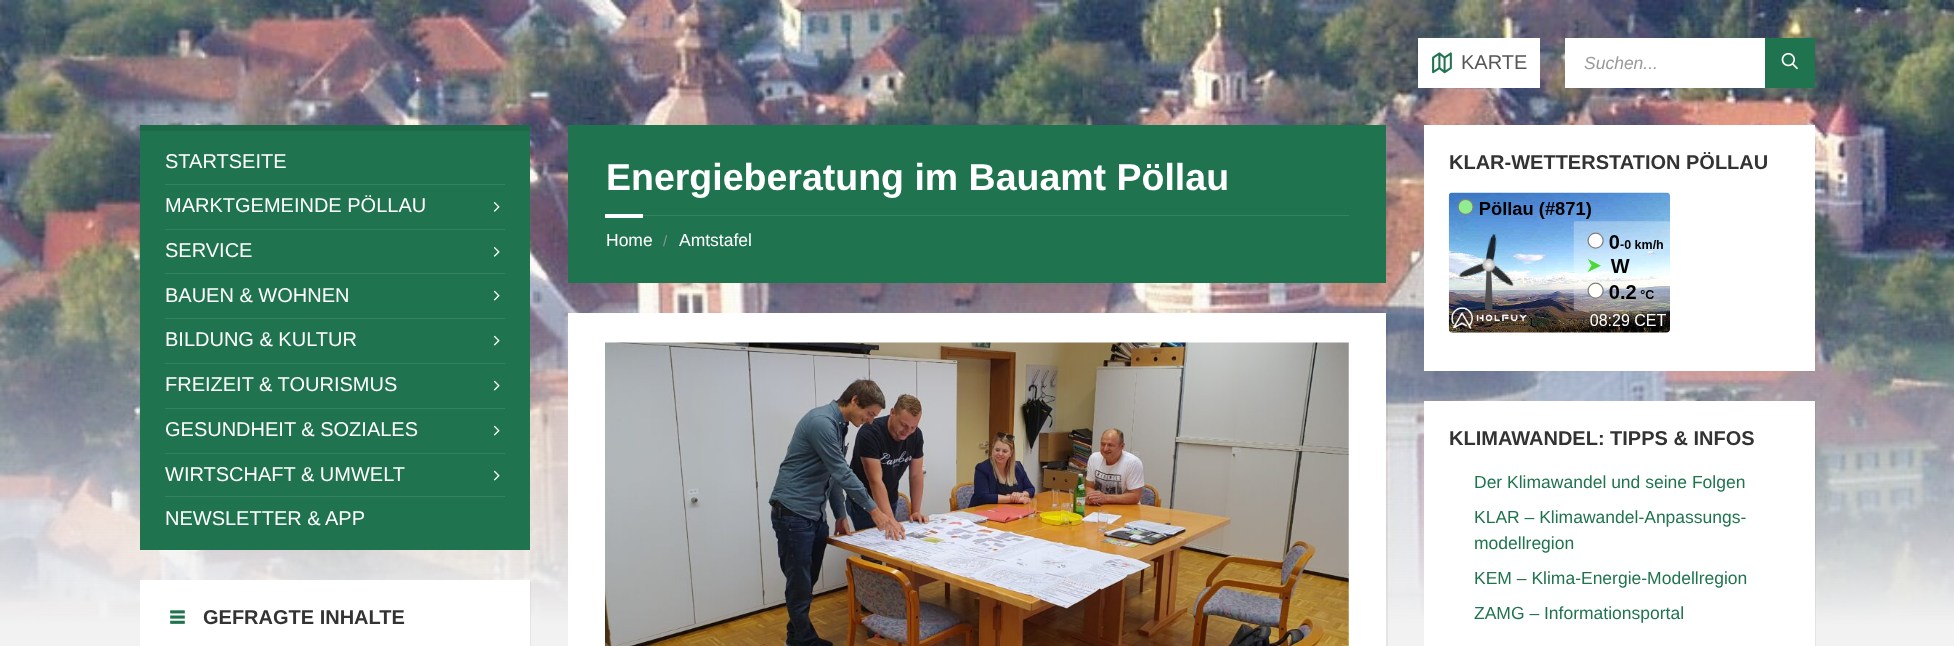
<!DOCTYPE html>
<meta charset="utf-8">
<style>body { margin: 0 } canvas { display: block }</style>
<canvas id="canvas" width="1954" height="646"></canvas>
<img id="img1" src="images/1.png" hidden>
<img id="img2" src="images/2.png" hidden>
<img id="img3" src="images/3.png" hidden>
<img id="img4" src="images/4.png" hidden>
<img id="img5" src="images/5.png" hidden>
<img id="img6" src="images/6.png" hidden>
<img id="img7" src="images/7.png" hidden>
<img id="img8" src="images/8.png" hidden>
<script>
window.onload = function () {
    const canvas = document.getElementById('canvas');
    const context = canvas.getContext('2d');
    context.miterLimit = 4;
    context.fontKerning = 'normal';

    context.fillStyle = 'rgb(242, 242, 242)';
    context.fillRect(0, 0, 1954, 646);
    context.drawImage(document.getElementById('img1'), 0, 0, 1954, 625);
    context.fillStyle = 'rgb(255, 255, 255)';
    context.fillRect(1418, 38, 122, 50);
    context.drawImage(document.getElementById('img2'), 1432, 52, 20, 22);
    context.fillRect(1565, 38, 200, 50);
    context.fillStyle = 'rgb(31, 116, 79)';
    context.fillRect(1765, 38, 50, 50);
    context.drawImage(document.getElementById('img3'), 1781, 52, 17, 18);
    context.fillRect(140, 131, 390, 419);
    context.fillStyle = 'rgb(28, 104, 71)';
    context.fillRect(140, 125, 390, 6);
    context.fillStyle = 'rgb(53, 130, 97)';
    context.fillRect(165, 184, 340, 1);
    context.drawImage(document.getElementById('img4'), 493, 202, 7, 10);
    context.fillRect(165, 229, 340, 1);
    context.drawImage(document.getElementById('img4'), 493, 247, 7, 10);
    context.fillRect(165, 273, 340, 1);
    context.drawImage(document.getElementById('img5'), 493, 290, 7, 11);
    context.fillRect(165, 318, 340, 1);
    context.drawImage(document.getElementById('img5'), 493, 335, 7, 11);
    context.fillRect(165, 363, 340, 1);
    context.drawImage(document.getElementById('img5'), 493, 380, 7, 11);
    context.fillRect(165, 408, 340, 1);
    context.drawImage(document.getElementById('img5'), 493, 425, 7, 11);
    context.fillRect(165, 453, 340, 1);
    context.drawImage(document.getElementById('img5'), 493, 470, 7, 11);
    context.fillRect(165, 496, 340, 1);
    context.fillStyle = 'rgba(0, 0, 0, 0.05)';
    context.beginPath();
    context.moveTo(141, 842);
    context.lineTo(141, 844);
    context.lineTo(531, 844);
    context.lineTo(531, 581);
    context.lineTo(530, 581);
    context.lineTo(530, 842);
    context.closePath();
    context.fill();
    context.fillStyle = 'rgb(255, 255, 255)';
    context.fillRect(140, 580, 390, 66);
    context.drawImage(document.getElementById('img6'), 170, 610, 15, 14);
    context.fillStyle = 'rgb(31, 116, 79)';
    context.fillRect(568, 125, 818, 158);
    context.fillStyle = 'rgb(53, 130, 97)';
    context.fillRect(643, 215, 706, 1);
    context.fillStyle = 'rgb(255, 255, 255)';
    context.fillRect(605, 214, 38, 4);
    context.fillStyle = 'rgba(0, 0, 0, 0.05)';
    context.beginPath();
    context.moveTo(569, 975);
    context.lineTo(569, 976);
    context.lineTo(1388, 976);
    context.lineTo(1388, 314);
    context.lineTo(1386, 314);
    context.lineTo(1386, 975);
    context.closePath();
    context.fill();
    context.fillStyle = 'rgb(255, 255, 255)';
    context.fillRect(568, 313, 818, 333);
    context.drawImage(document.getElementById('img7'), 605, 342, 744, 304);
    context.fillRect(1424, 125, 391, 246);
    context.drawImage(document.getElementById('img8'), 1448, 192, 223, 141);
    context.fillStyle = 'rgba(0, 0, 0, 0.05)';
    context.beginPath();
    context.moveTo(1425, 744);
    context.lineTo(1425, 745);
    context.lineTo(1816, 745);
    context.lineTo(1816, 403);
    context.lineTo(1815, 403);
    context.lineTo(1815, 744);
    context.closePath();
    context.fill();
    context.fillStyle = 'rgb(255, 255, 255)';
    context.fillRect(1424, 401, 391, 245);
    context.font = '20px Liberation Sans';
    context.fillStyle = 'rgb(86, 86, 86)';
    context.fillText('KARTE', 1461, 69);
    context.font = 'italic 17.5px Liberation Sans';
    context.fillStyle = 'rgb(154, 154, 154)';
    context.fillText('Suchen...', 1584, 69);
    context.font = '20px Liberation Sans';
    context.fillStyle = 'rgb(255, 255, 255)';
    context.fillText('STARTSEITE', 165, 168);
    context.fillText('MARKTGEMEINDE PÖLLAU', 165, 212);
    context.fillText('SERVICE', 165, 257);
    context.fillText('BAUEN & WOHNEN', 165, 302);
    context.fillText('BILDUNG & KULTUR', 165, 346);
    context.fillText('FREIZEIT & TOURISMUS', 165, 391);
    context.fillText('GESUNDHEIT & SOZIALES', 165, 436);
    context.fillText('WIRTSCHAFT & UMWELT', 165, 481);
    context.fillText('NEWSLETTER & APP', 165, 525);
    context.font = 'bold 20px Liberation Sans';
    context.fillStyle = 'rgb(51, 51, 51)';
    context.fillText('GEFRAGTE INHALTE', 203, 624);
    context.font = 'bold 37.5px Liberation Sans';
    context.fillStyle = 'rgb(255, 255, 255)';
    context.fillText('Energieberatung im Bauamt Pöllau', 606, 190);
    context.font = '17.5px Liberation Sans';
    context.fillText('Home', 606, 246);
    context.font = '15px Liberation Sans';
    context.fillStyle = 'rgb(138, 148, 155)';
    context.fillText('/', 663, 246);
    context.font = '17.5px Liberation Sans';
    context.fillStyle = 'rgb(255, 255, 255)';
    context.fillText('Amtstafel', 679, 246);
    context.font = 'bold 20px Liberation Sans';
    context.fillStyle = 'rgb(51, 51, 51)';
    context.fillText('KLAR-WETTERSTATION PÖLLAU', 1449, 169);
    context.fillText('KLIMAWANDEL: TIPPS & INFOS', 1449, 445);
    context.font = '17.5px Liberation Sans';
    context.fillStyle = 'rgb(31, 116, 79)';
    context.fillText('Der Klimawandel und seine Folgen', 1474, 488);
    context.fillText('KLAR – Klimawandel-Anpassungs-', 1474, 523);
    context.fillText('modellregion', 1474, 549);
    context.fillText('KEM – Klima-Energie-Modellregion', 1474, 584);
    context.fillText('ZAMG – Informationsportal', 1474, 619);
};
</script>
